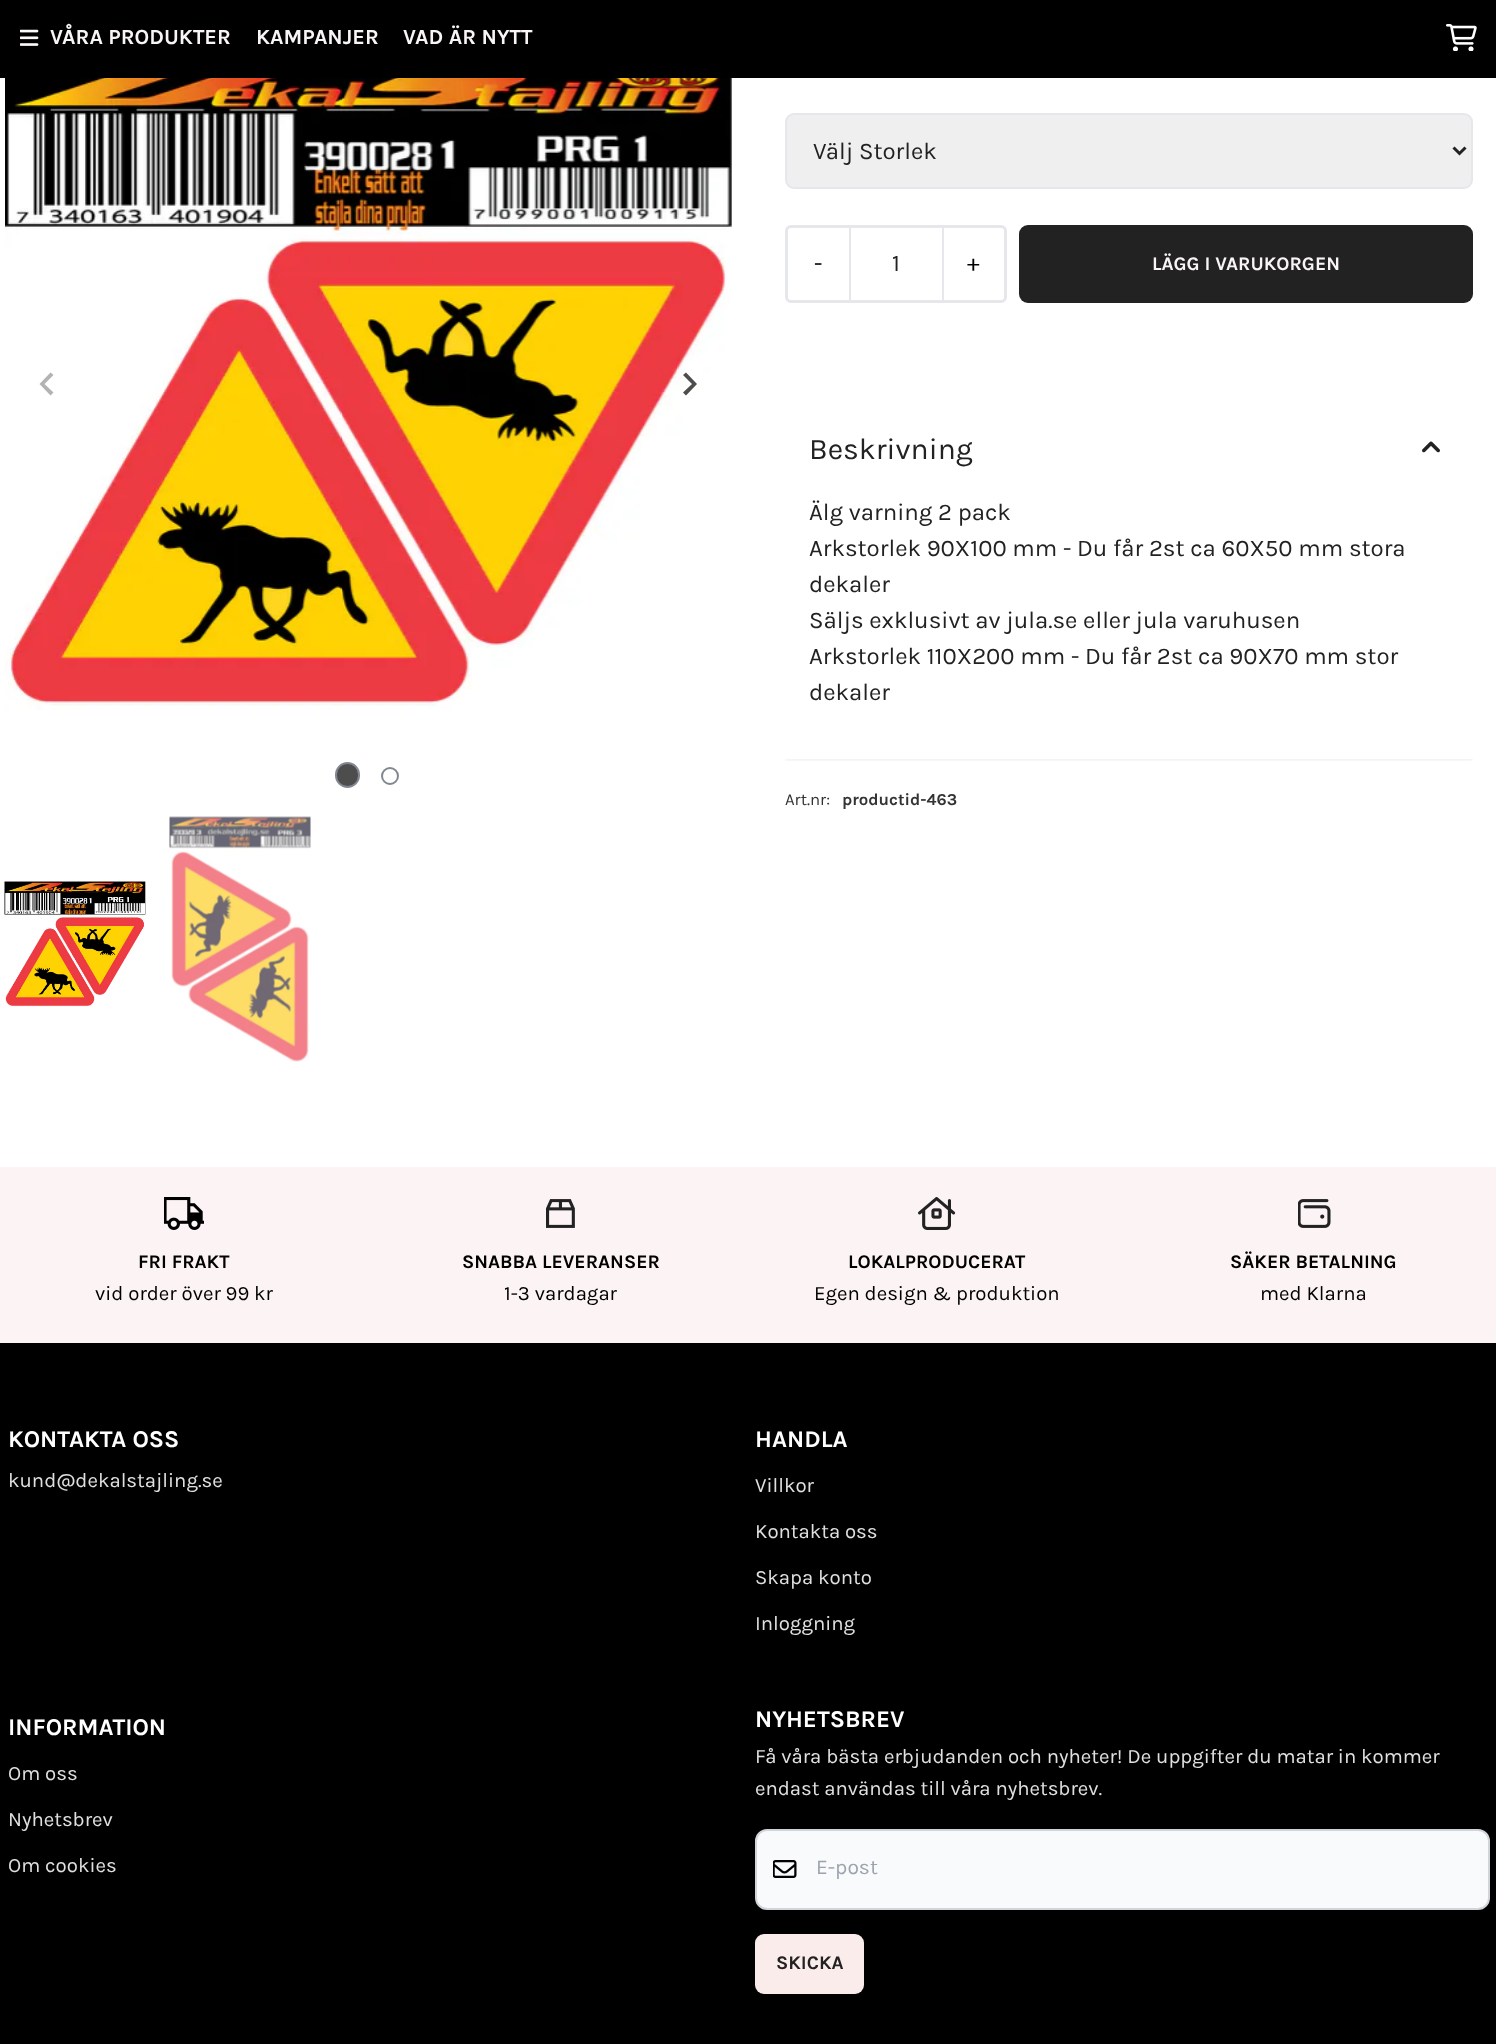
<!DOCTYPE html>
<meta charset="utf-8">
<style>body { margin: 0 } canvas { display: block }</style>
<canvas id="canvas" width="1496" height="2044"></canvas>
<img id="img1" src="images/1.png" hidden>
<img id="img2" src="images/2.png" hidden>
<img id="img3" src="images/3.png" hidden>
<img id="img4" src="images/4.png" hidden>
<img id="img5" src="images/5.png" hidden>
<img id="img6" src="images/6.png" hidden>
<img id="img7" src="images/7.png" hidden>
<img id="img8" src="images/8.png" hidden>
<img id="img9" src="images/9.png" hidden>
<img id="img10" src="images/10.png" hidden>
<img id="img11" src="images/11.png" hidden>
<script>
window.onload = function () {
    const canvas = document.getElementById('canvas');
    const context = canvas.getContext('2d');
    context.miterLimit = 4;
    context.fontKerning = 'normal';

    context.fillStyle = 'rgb(255, 255, 255)';
    context.fillRect(0, 0, 1496, 2044);
    context.fillStyle = 'rgb(0, 0, 0)';
    context.fillRect(0, 0, 1496, 78);
    context.drawImage(document.getElementById('img1'), 20, 29, 19, 17);
    context.drawImage(document.getElementById('img2'), 1446, 24, 31, 27);
    context.drawImage(document.getElementById('img3'), 5, 78, 727, 632);
    context.fillStyle = 'rgb(179, 179, 179)';
    context.beginPath();
    context.moveTo(50.5, 372.5);
    context.lineTo(53.5, 375);
    context.lineTo(44.5, 384);
    context.lineTo(53.5, 392.5);
    context.lineTo(50.5, 395.5);
    context.lineTo(39.5, 384);
    context.closePath();
    context.fill();
    context.fillStyle = 'rgb(77, 77, 76)';
    context.beginPath();
    context.moveTo(686, 372.5);
    context.lineTo(683, 375);
    context.lineTo(692, 384);
    context.lineTo(683, 392.5);
    context.lineTo(686, 395.5);
    context.lineTo(697, 384);
    context.closePath();
    context.fill();
    context.fillStyle = 'rgb(77, 77, 77)';
    context.beginPath();
    context.roundRect(336, 763, 23, 24, 11.5);
    context.fill();
    context.strokeStyle = 'rgb(129, 136, 146)';
    context.lineWidth = 2;
    context.stroke();
    context.beginPath();
    context.arc(390, 776, 8, 0, 2 * Math.PI);
    context.stroke();
    context.drawImage(document.getElementById('img4'), 4, 881, 142, 126);
    context.drawImage(document.getElementById('img5'), 169, 816, 142, 246);
    context.fillStyle = 'rgb(239, 239, 239)';
    context.beginPath();
    context.roundRect(786, 114, 686, 74, 8);
    context.fill();
    context.strokeStyle = 'rgb(229, 231, 235)';
    context.stroke();
    context.beginPath();
    context.moveTo(1453.5, 147.5);
    context.lineTo(1459.5, 153.5);
    context.lineTo(1465.5, 147.5);
    context.strokeStyle = 'rgb(34, 34, 34)';
    context.lineWidth = 3;
    context.stroke();
    context.beginPath();
    context.roundRect(786.5, 226.5, 219, 75, 4.5);
    context.strokeStyle = 'rgb(229, 231, 235)';
    context.stroke();
    context.fillStyle = 'rgb(229, 231, 235)';
    context.fillRect(849, 228, 2, 72);
    context.fillRect(942, 228, 2, 72);
    context.fillStyle = 'rgb(34, 34, 34)';
    context.beginPath();
    context.roundRect(1019, 225, 454, 78, 9);
    context.fill();
    context.save();
    context.beginPath();
    context.rect(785, 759, 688, 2);
    context.clip();
    context.fillStyle = 'rgba(0, 0, 0, 0.05)';
    context.filter = 'blur(1.5px)';
    context.beginPath();
    context.rect(785, 395, 688, 366);
    context.fill();
    context.filter = 'none';
    context.restore();
    context.drawImage(document.getElementById('img6'), 1422, 441, 18, 12);
    context.fillStyle = 'rgb(252, 244, 244)';
    context.fillRect(0, 1167, 1496, 176);
    context.drawImage(document.getElementById('img7'), 164, 1197, 40, 33);
    context.drawImage(document.getElementById('img8'), 546, 1199, 29, 29);
    context.drawImage(document.getElementById('img9'), 918, 1197, 38, 33);
    context.drawImage(document.getElementById('img10'), 1298, 1199, 33, 29);
    context.fillStyle = 'rgb(0, 0, 0)';
    context.fillRect(0, 1343, 1496, 701);
    context.fillStyle = 'rgb(249, 250, 251)';
    context.beginPath();
    context.roundRect(756, 1830, 733, 79, 11);
    context.fill();
    context.strokeStyle = 'rgb(209, 213, 219)';
    context.lineWidth = 2;
    context.stroke();
    context.drawImage(document.getElementById('img11'), 773, 1860, 24, 18);
    context.fillStyle = 'rgb(250, 236, 235)';
    context.beginPath();
    context.roundRect(755, 1934, 109, 60, 9);
    context.fill();
    context.font = 'bold 21.5px Karla';
    context.fillStyle = 'rgb(250, 245, 245)';
    context.fillText('VÅRA PRODUKTER', 50, 44);
    context.fillText('KAMPANJER', 256, 44);
    context.fillText('VAD ÄR NYTT', 403, 44);
    context.font = '24px Karla';
    context.fillStyle = 'rgb(34, 34, 34)';
    context.fillText('Välj Storlek', 813, 159);
    context.fillStyle = 'rgb(0, 0, 0)';
    context.fillText('-', 814, 271);
    context.fillStyle = 'rgb(34, 34, 34)';
    context.fillText('1', 892, 271);
    context.fillStyle = 'rgb(0, 0, 0)';
    context.fillText('+', 967, 271);
    context.font = 'bold 19.25px Karla';
    context.fillStyle = 'rgb(250, 245, 245)';
    context.fillText('LÄGG I VARUKORGEN', 1152, 270);
    context.font = '30px Karla';
    context.fillStyle = 'rgb(34, 34, 34)';
    context.fillText('Beskrivning', 809, 459);
    context.font = '24px Karla';
    context.fillText('Älg varning 2 pack', 809, 520);
    context.fillText('Arkstorlek 90X100 mm - Du får 2st ca 60X50 mm stora', 809, 556);
    context.fillText('dekaler', 809, 592);
    context.fillText('Säljs exklusivt av jula.se eller jula varuhusen', 809, 628);
    context.fillText('Arkstorlek 110X200 mm - Du får 2st ca 90X70 mm stor', 809, 664);
    context.fillText('dekaler', 809, 700);
    context.font = '16.75px Karla';
    context.fillStyle = 'rgb(51, 51, 51)';
    context.fillText('Art.nr:', 785, 805);
    context.font = 'bold 16.75px Karla';
    context.fillText('productid-463', 842, 805);
    context.font = 'bold 19.25px Karla';
    context.fillStyle = 'rgb(0, 0, 0)';
    context.fillText('FRI FRAKT', 138, 1268);
    context.font = '20.4px Karla';
    context.fillText('vid order över 99 kr', 95, 1300);
    context.font = 'bold 19.25px Karla';
    context.fillText('SNABBA LEVERANSER', 462, 1268);
    context.font = '20.4px Karla';
    context.fillText('1-3 vardagar', 504, 1300);
    context.font = 'bold 19.25px Karla';
    context.fillText('LOKALPRODUCERAT', 848, 1268);
    context.font = '20.4px Karla';
    context.fillText('Egen design & produktion', 814, 1300);
    context.font = 'bold 19.25px Karla';
    context.fillText('SÄKER BETALNING', 1230, 1268);
    context.font = '20.4px Karla';
    context.fillText('med Klarna', 1260, 1300);
    context.font = 'bold 24px Karla';
    context.fillStyle = 'rgb(255, 255, 255)';
    context.fillText('KONTAKTA OSS', 8, 1447);
    context.font = '20.4px Karla';
    context.fillStyle = 'rgb(224, 224, 224)';
    context.fillText('kund@dekalstajling.se', 8, 1487);
    context.font = 'bold 24px Karla';
    context.fillStyle = 'rgb(255, 255, 255)';
    context.fillText('HANDLA', 755, 1447);
    context.font = '20.4px Karla';
    context.fillStyle = 'rgb(224, 224, 224)';
    context.fillText('Villkor', 755, 1492);
    context.fillText('Kontakta oss', 755, 1538);
    context.fillText('Skapa konto', 755, 1584);
    context.fillText('Inloggning', 755, 1630);
    context.font = 'bold 24px Karla';
    context.fillStyle = 'rgb(255, 255, 255)';
    context.fillText('INFORMATION', 8, 1735);
    context.font = '20.4px Karla';
    context.fillStyle = 'rgb(224, 224, 224)';
    context.fillText('Om oss', 8, 1780);
    context.fillText('Nyhetsbrev', 8, 1826);
    context.fillText('Om cookies', 8, 1872);
    context.font = 'bold 24px Karla';
    context.fillStyle = 'rgb(255, 255, 255)';
    context.fillText('NYHETSBREV', 755, 1727);
    context.font = '20.4px Karla';
    context.fillStyle = 'rgb(224, 224, 224)';
    context.fillText('Få våra bästa erbjudanden och nyheter! De uppgifter du matar in kommer', 755, 1763);
    context.fillText('endast användas till våra nyhetsbrev.', 755, 1795);
    context.font = '21px Karla';
    context.fillStyle = 'rgb(156, 163, 175)';
    context.fillText('E-post', 816, 1874);
    context.font = 'bold 19.25px Karla';
    context.fillStyle = 'rgb(34, 34, 34)';
    context.fillText('SKICKA', 776, 1969);
};
</script>
